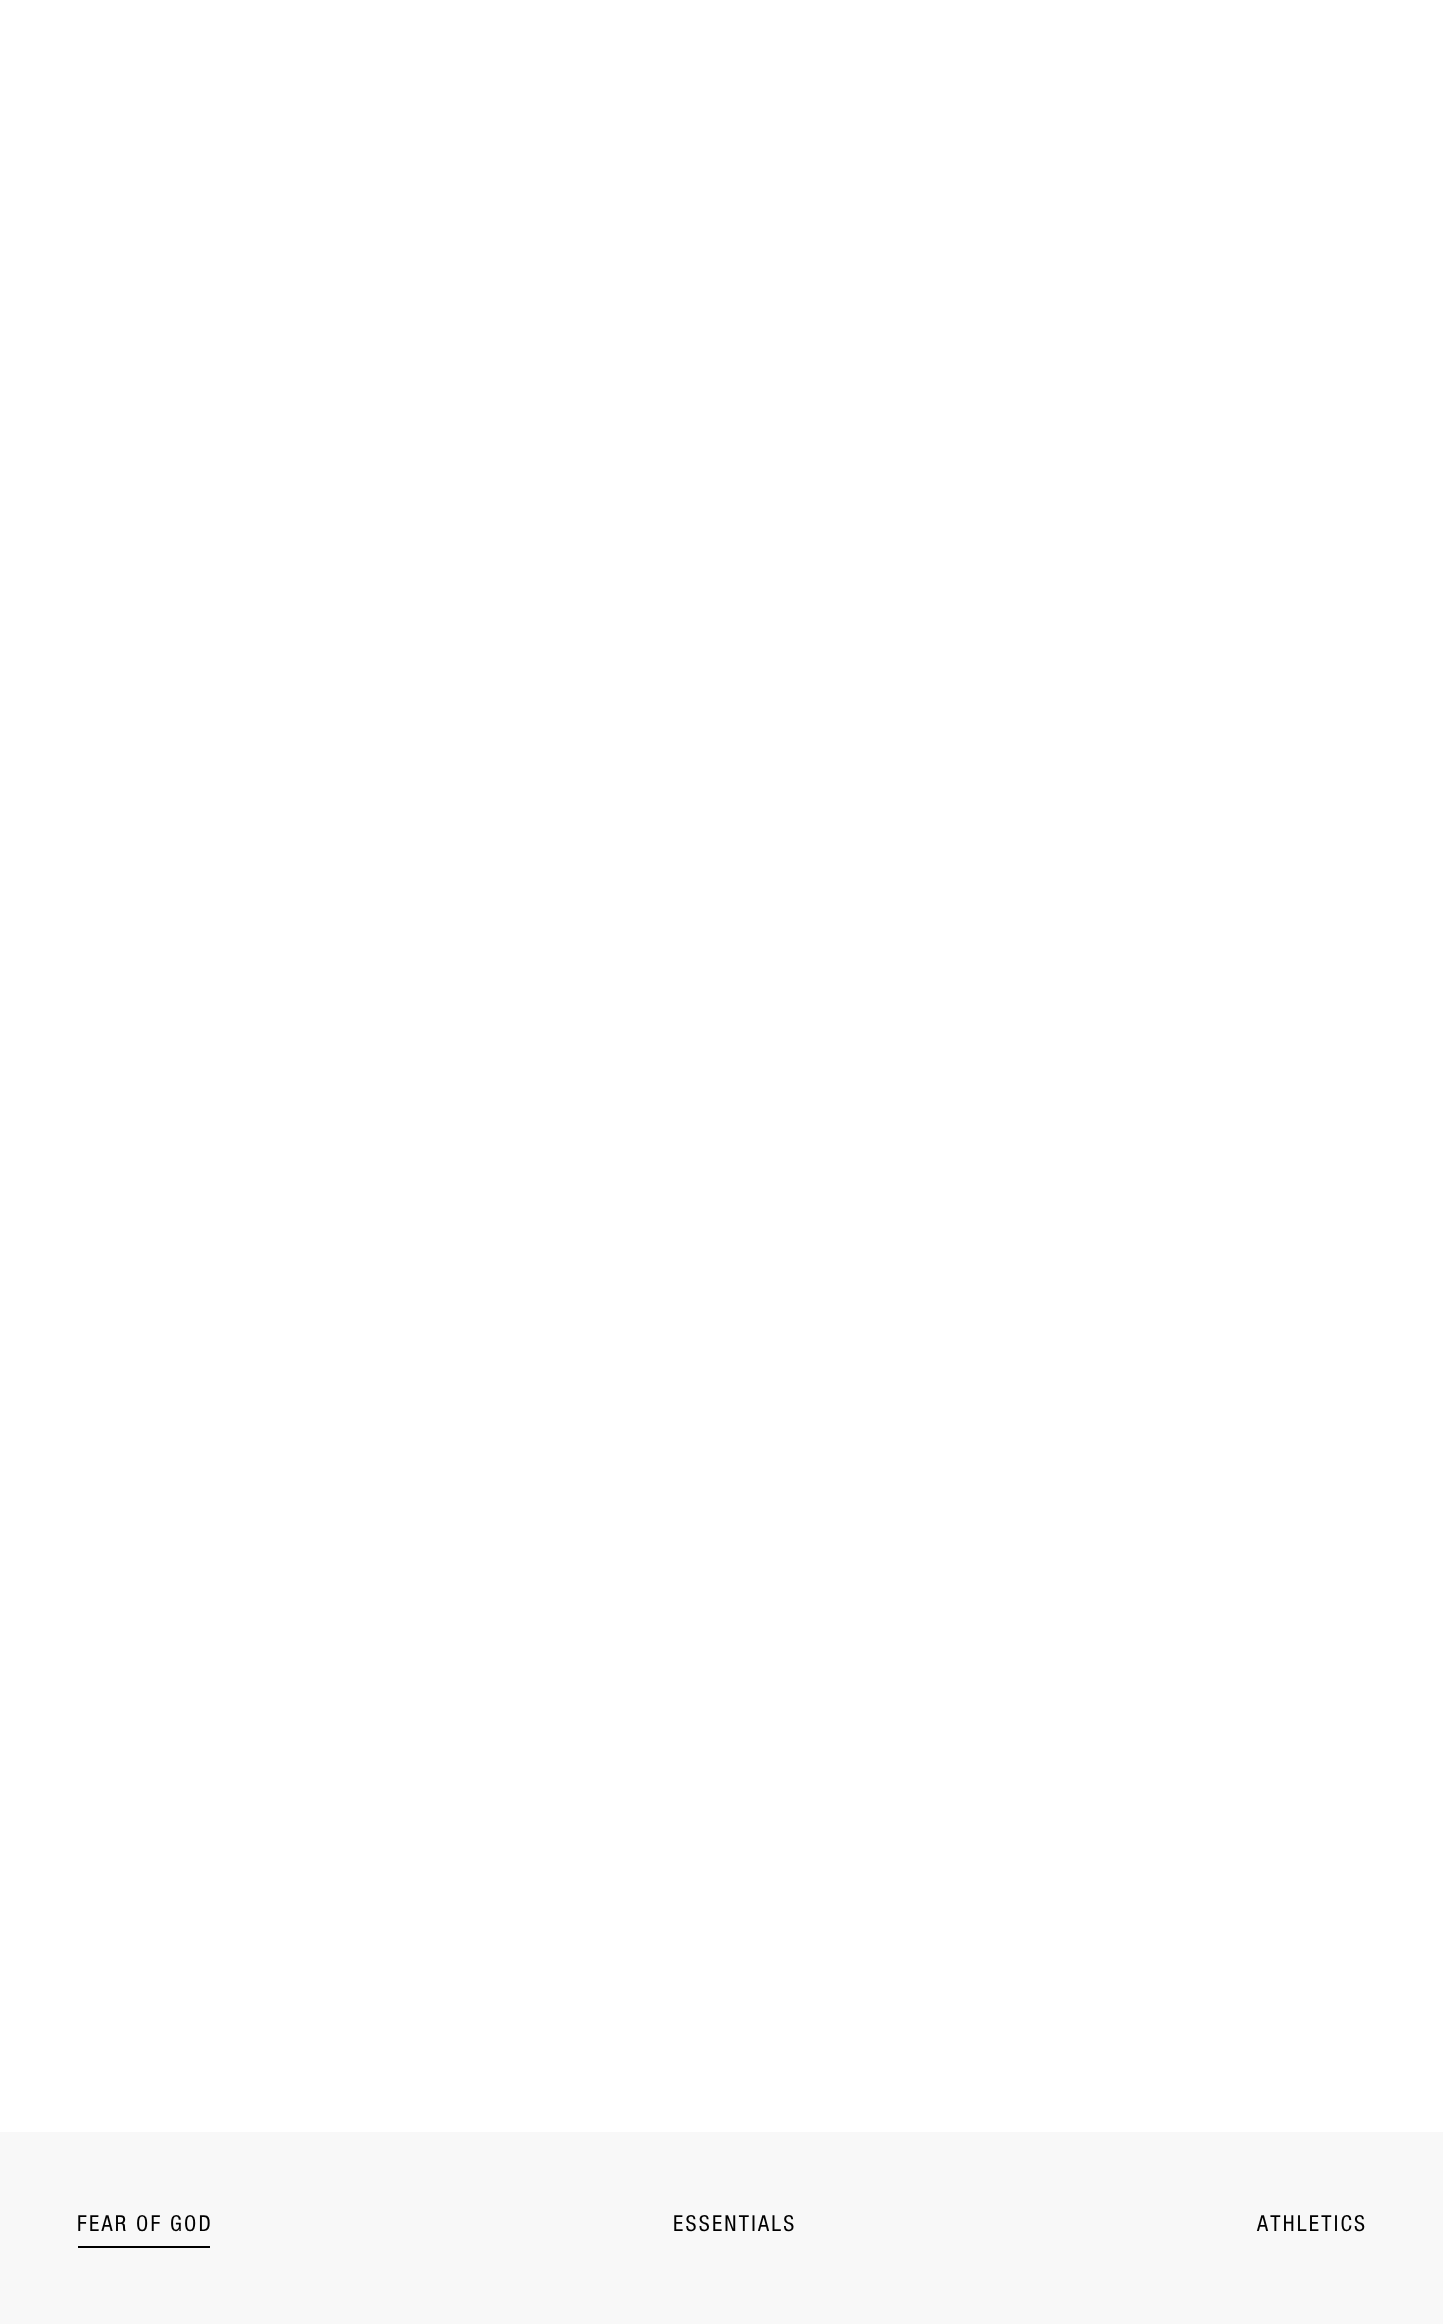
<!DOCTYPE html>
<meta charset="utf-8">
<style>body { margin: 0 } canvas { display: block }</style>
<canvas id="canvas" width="1443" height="2324"></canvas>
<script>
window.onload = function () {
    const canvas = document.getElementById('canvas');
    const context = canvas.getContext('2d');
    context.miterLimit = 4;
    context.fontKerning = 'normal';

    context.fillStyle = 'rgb(255, 255, 255)';
    context.fillRect(0, 0, 1443, 2324);
    context.fillStyle = 'rgb(248, 248, 248)';
    context.fillRect(0, 2132, 1443, 192);
    context.fillStyle = 'rgb(0, 0, 0)';
    context.fillRect(78, 2246, 132, 2);
    context.letterSpacing = '2.25px';
    context.font = '22px Helvetica Neue';
    context.fillText('FEAR OF GOD', 77, 2231);
    context.fillText('ESSENTIALS', 673, 2231);
    context.fillText('ATHLETICS', 1257, 2231);
};
</script>
